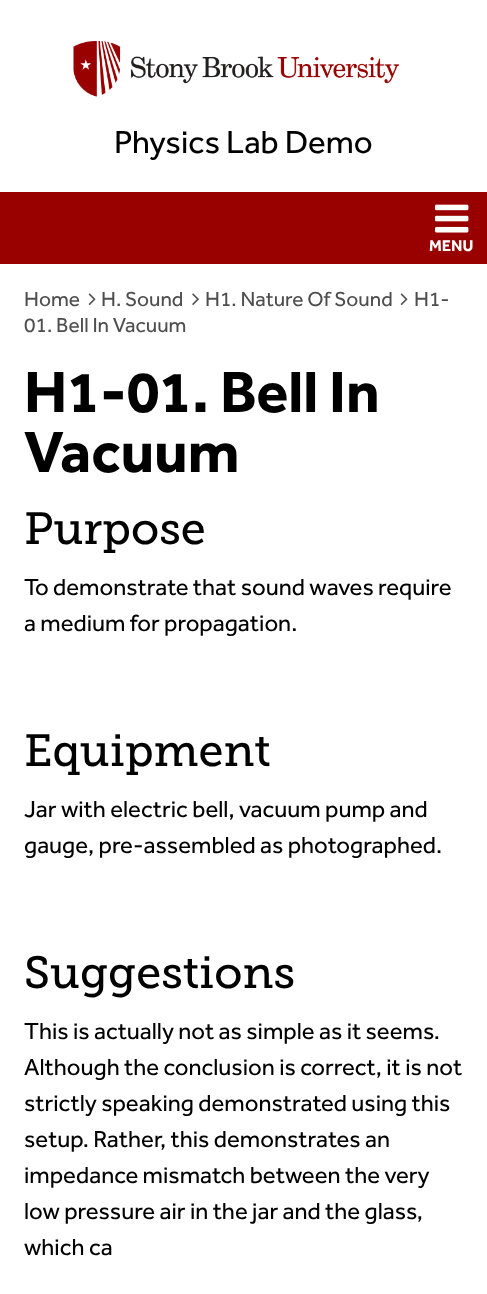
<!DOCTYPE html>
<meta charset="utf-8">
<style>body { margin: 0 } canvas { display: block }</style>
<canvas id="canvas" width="487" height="1294"></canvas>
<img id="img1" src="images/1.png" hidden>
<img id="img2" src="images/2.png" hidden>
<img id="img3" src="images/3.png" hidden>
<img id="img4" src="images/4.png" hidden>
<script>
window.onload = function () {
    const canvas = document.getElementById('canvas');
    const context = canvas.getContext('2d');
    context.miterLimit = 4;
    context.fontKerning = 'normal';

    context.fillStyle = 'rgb(255, 255, 255)';
    context.fillRect(0, 0, 487, 1294);
    context.drawImage(document.getElementById('img1'), 73, 41, 326, 56);
    context.fillStyle = 'rgb(153, 0, 0)';
    context.fillRect(0, 192, 487, 72);
    context.drawImage(document.getElementById('img2'), 435, 204, 34, 29);
    context.drawImage(document.getElementById('img3'), 88, 293, 8, 12);
    context.drawImage(document.getElementById('img4'), 192, 293, 7, 12);
    context.drawImage(document.getElementById('img3'), 400, 293, 8, 12);
    context.font = '33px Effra';
    context.fillStyle = 'rgb(0, 0, 0)';
    context.fillText('Physics Lab Demo', 114, 153);
    context.font = 'bold 16px Effra';
    context.fillStyle = 'rgb(255, 255, 255)';
    context.fillText('MENU', 429, 251);
    context.font = '21px Effra';
    context.fillStyle = 'rgb(78, 78, 78)';
    context.fillText('Home', 24, 306);
    context.fillText('H. Sound', 101, 306);
    context.fillText('H1. Nature Of Sound', 205, 306);
    context.fillText('H1-', 414, 306);
    context.fillText('01. Bell In Vacuum', 24, 332);
    context.font = 'bold 60px Effra';
    context.fillStyle = 'rgb(0, 0, 0)';
    context.fillText('H1-01. Bell In', 24, 412);
    context.fillText('Vacuum', 24, 472);
    context.font = '45px "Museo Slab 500"';
    context.fillText('Purpose', 24, 544);
    context.font = '24px Effra';
    context.fillText('To demonstrate that sound waves require', 24, 595);
    context.fillText('a medium for propagation.', 24, 631);
    context.font = '45px "Museo Slab 500"';
    context.fillText('Equipment', 24, 766);
    context.font = '24px Effra';
    context.fillText('Jar with electric bell, vacuum pump and', 24, 817);
    context.fillText('gauge, pre-assembled as photographed.', 24, 853);
    context.font = '45px "Museo Slab 500"';
    context.fillText('Suggestions', 24, 988);
    context.font = '24px Effra';
    context.fillText('This is actually not as simple as it seems.', 24, 1039);
    context.fillText('Although the conclusion is correct, it is not', 24, 1075);
    context.fillText('strictly speaking demonstrated using this', 24, 1111);
    context.fillText('setup. Rather, this demonstrates an', 24, 1147);
    context.fillText('impedance mismatch between the very', 24, 1183);
    context.fillText('low pressure air in the jar and the glass,', 24, 1219);
    context.fillText('which ca', 24, 1255);
};
</script>
